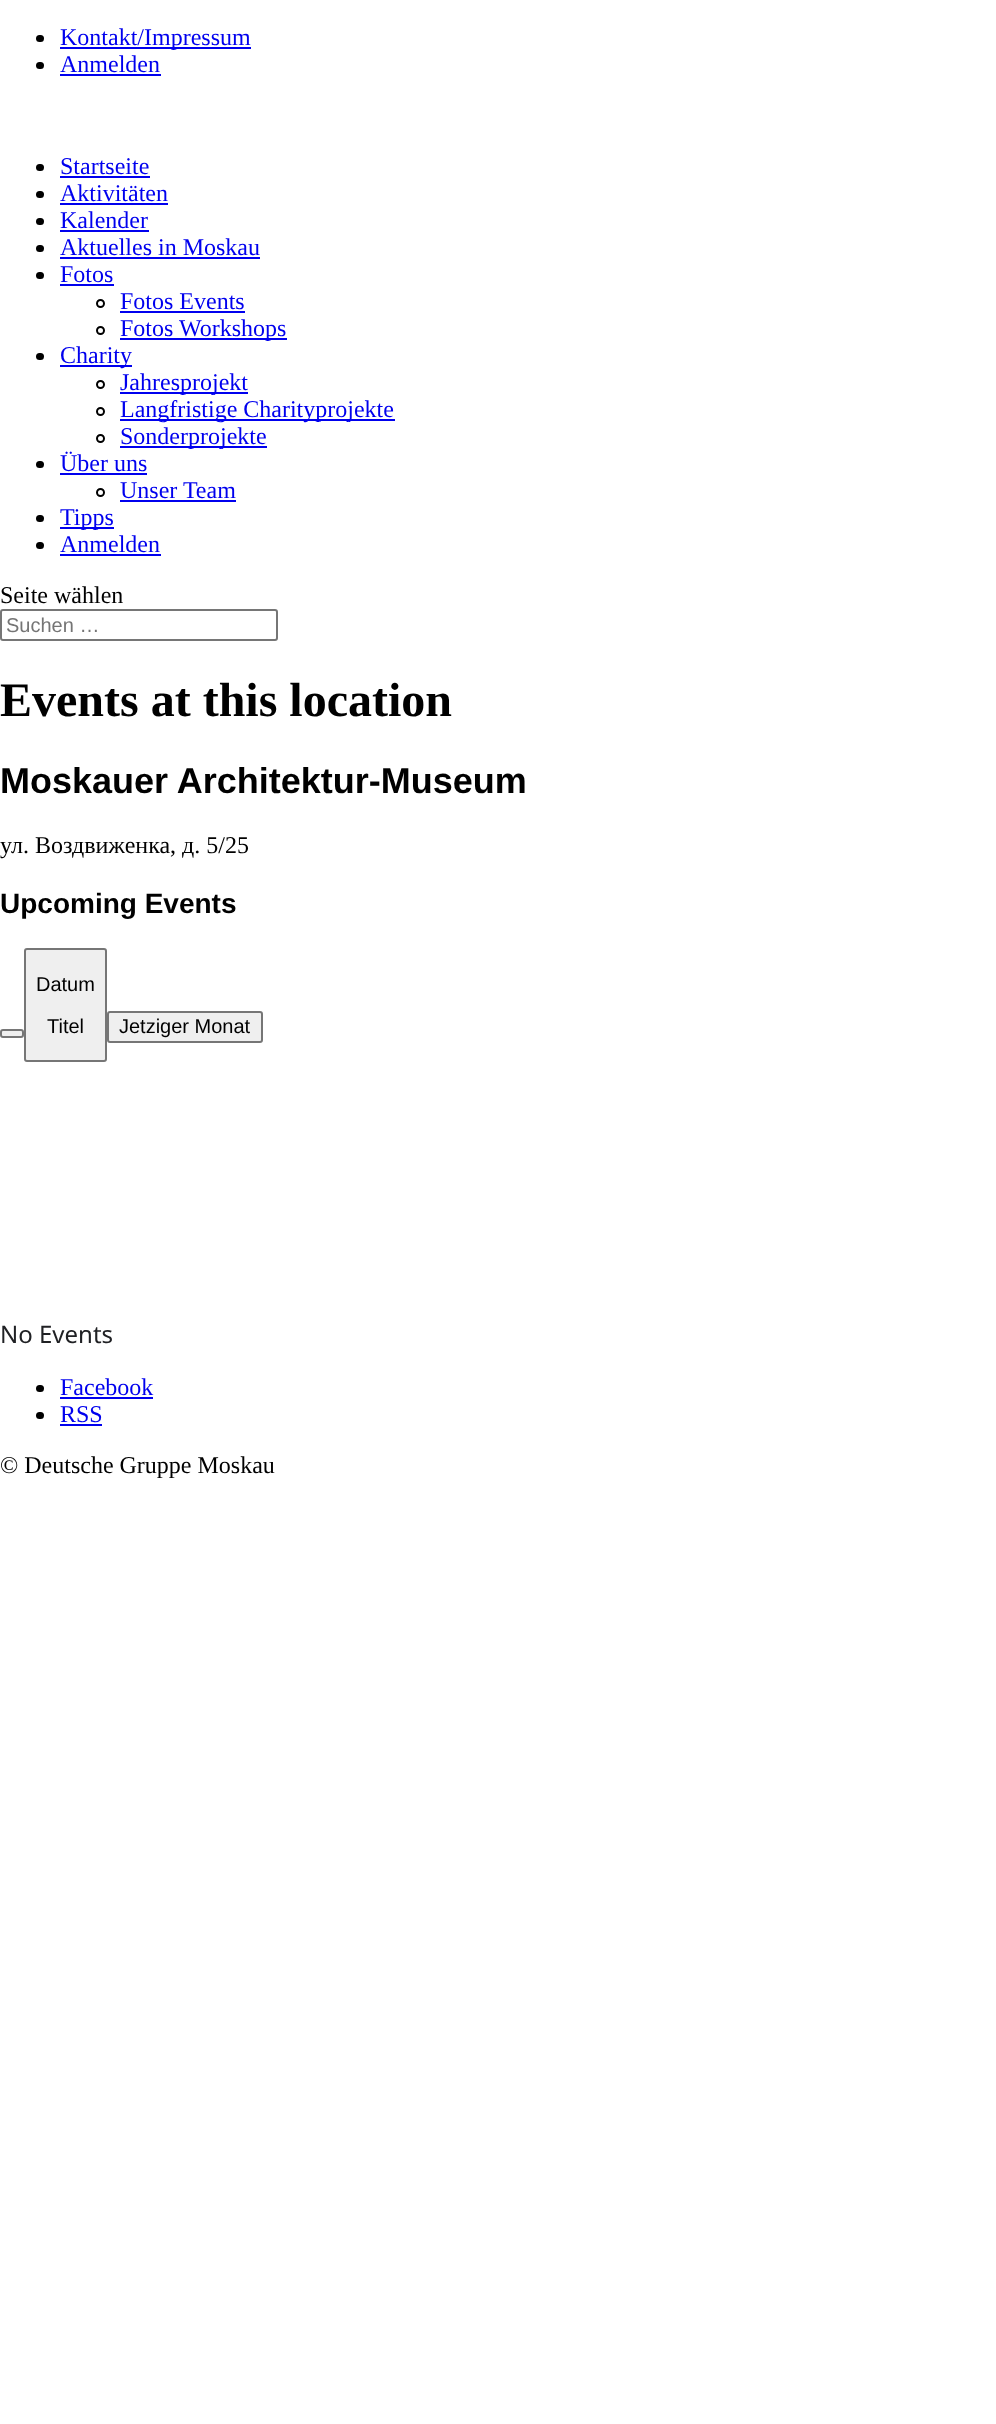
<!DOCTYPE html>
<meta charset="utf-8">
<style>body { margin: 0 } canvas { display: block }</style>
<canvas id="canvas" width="996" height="2424"></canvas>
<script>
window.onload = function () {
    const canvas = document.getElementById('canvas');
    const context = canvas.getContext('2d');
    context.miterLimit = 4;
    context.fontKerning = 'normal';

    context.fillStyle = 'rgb(255, 255, 255)';
    context.fillRect(0, 0, 996, 2424);
    context.fillStyle = 'rgb(0, 0, 0)';
    context.beginPath();
    context.roundRect(36, 35, 8, 7, 3.5);
    context.fill();
    context.fillStyle = 'rgb(0, 0, 238)';
    context.fillRect(60, 47, 191, 2);
    context.fillStyle = 'rgb(0, 0, 0)';
    context.beginPath();
    context.roundRect(36, 62, 8, 7, 3.5);
    context.fill();
    context.fillStyle = 'rgb(0, 0, 238)';
    context.fillRect(60, 74, 101, 2);
    context.fillStyle = 'rgb(0, 0, 0)';
    context.beginPath();
    context.roundRect(36, 164, 8, 7, 3.5);
    context.fill();
    context.fillStyle = 'rgb(0, 0, 238)';
    context.fillRect(60, 176, 90, 2);
    context.fillStyle = 'rgb(0, 0, 0)';
    context.beginPath();
    context.roundRect(36, 191, 8, 7, 3.5);
    context.fill();
    context.fillStyle = 'rgb(0, 0, 238)';
    context.fillRect(60, 203, 108, 2);
    context.fillStyle = 'rgb(0, 0, 0)';
    context.beginPath();
    context.roundRect(36, 218, 8, 7, 3.5);
    context.fill();
    context.fillStyle = 'rgb(0, 0, 238)';
    context.fillRect(60, 230, 89, 2);
    context.fillStyle = 'rgb(0, 0, 0)';
    context.beginPath();
    context.roundRect(36, 245, 8, 7, 3.5);
    context.fill();
    context.fillStyle = 'rgb(0, 0, 238)';
    context.fillRect(60, 257, 200, 2);
    context.fillStyle = 'rgb(0, 0, 0)';
    context.beginPath();
    context.roundRect(36, 272, 8, 7, 3.5);
    context.fill();
    context.fillStyle = 'rgb(0, 0, 238)';
    context.fillRect(60, 284, 54, 2);
    context.beginPath();
    context.arc(100.5, 303.5, 3.5, 0, 2 * Math.PI);
    context.strokeStyle = 'rgb(0, 0, 0)';
    context.lineWidth = 2;
    context.stroke();
    context.fillRect(120, 311, 125, 2);
    context.beginPath();
    context.arc(100.5, 330.5, 3.5, 0, 2 * Math.PI);
    context.stroke();
    context.fillRect(120, 338, 167, 2);
    context.fillStyle = 'rgb(0, 0, 0)';
    context.beginPath();
    context.roundRect(36, 353, 8, 7, 3.5);
    context.fill();
    context.fillStyle = 'rgb(0, 0, 238)';
    context.fillRect(60, 365, 72, 2);
    context.beginPath();
    context.arc(100.5, 384.5, 3.5, 0, 2 * Math.PI);
    context.stroke();
    context.fillRect(120, 392, 128, 2);
    context.beginPath();
    context.arc(100.5, 411.5, 3.5, 0, 2 * Math.PI);
    context.stroke();
    context.fillRect(120, 419, 275, 2);
    context.beginPath();
    context.arc(100.5, 438.5, 3.5, 0, 2 * Math.PI);
    context.stroke();
    context.fillRect(120, 446, 147, 2);
    context.fillStyle = 'rgb(0, 0, 0)';
    context.beginPath();
    context.roundRect(36, 461, 8, 7, 3.5);
    context.fill();
    context.fillStyle = 'rgb(0, 0, 238)';
    context.fillRect(60, 473, 87, 2);
    context.beginPath();
    context.arc(100.5, 492.5, 3.5, 0, 2 * Math.PI);
    context.stroke();
    context.fillRect(120, 500, 116, 2);
    context.fillStyle = 'rgb(0, 0, 0)';
    context.beginPath();
    context.roundRect(36, 515, 8, 7, 3.5);
    context.fill();
    context.fillStyle = 'rgb(0, 0, 238)';
    context.fillRect(60, 527, 54, 2);
    context.fillStyle = 'rgb(0, 0, 0)';
    context.beginPath();
    context.roundRect(36, 542, 8, 7, 3.5);
    context.fill();
    context.fillStyle = 'rgb(0, 0, 238)';
    context.fillRect(60, 554, 101, 2);
    context.beginPath();
    context.roundRect(1, 610, 276, 30, 2);
    context.strokeStyle = 'rgb(118, 118, 118)';
    context.stroke();
    context.fillStyle = 'rgb(239, 239, 239)';
    context.beginPath();
    context.roundRect(1, 1030, 22, 7, 2);
    context.fill();
    context.stroke();
    context.beginPath();
    context.roundRect(25, 949, 81, 112, 2);
    context.fill();
    context.stroke();
    context.beginPath();
    context.roundRect(108, 1012, 154, 30, 2);
    context.fill();
    context.stroke();
    context.fillStyle = 'rgb(0, 0, 0)';
    context.beginPath();
    context.roundRect(36, 1385, 8, 7, 3.5);
    context.fill();
    context.fillStyle = 'rgb(0, 0, 238)';
    context.fillRect(60, 1397, 93, 2);
    context.fillStyle = 'rgb(0, 0, 0)';
    context.beginPath();
    context.roundRect(36, 1412, 8, 7, 3.5);
    context.fill();
    context.fillStyle = 'rgb(0, 0, 238)';
    context.fillRect(60, 1424, 42, 2);
    context.font = '24px Liberation Serif';
    context.fillText('Kontakt/Impressum', 60, 45);
    context.fillText('Anmelden', 60, 72);
    context.fillText('Startseite', 60, 174);
    context.fillText('Aktivitäten', 60, 201);
    context.fillText('Kalender', 60, 228);
    context.fillText('Aktuelles in Moskau', 60, 255);
    context.fillText('Fotos', 60, 282);
    context.fillText('Fotos Events', 120, 309);
    context.fillText('Fotos Workshops', 120, 336);
    context.fillText('Charity', 60, 363);
    context.fillText('Jahresprojekt', 120, 390);
    context.fillText('Langfristige Charityprojekte', 120, 417);
    context.fillText('Sonderprojekte', 120, 444);
    context.fillText('Über uns', 60, 471);
    context.fillText('Unser Team', 120, 498);
    context.fillText('Tipps', 60, 525);
    context.fillText('Anmelden', 60, 552);
    context.fillStyle = 'rgb(0, 0, 0)';
    context.fillText('Seite wählen', 0, 603);
    context.font = '20px Liberation Sans';
    context.fillStyle = 'rgb(117, 117, 117)';
    context.fillText('Suchen …', 6, 632);
    context.font = 'bold 48px Liberation Serif';
    context.fillStyle = 'rgb(0, 0, 0)';
    context.fillText('Events at this location', 0, 716);
    context.font = 'bold 36px Liberation Sans';
    context.fillText('Moskauer Architektur-Museum', 0, 793);
    context.font = '24px Liberation Serif';
    context.fillText('ул. Воздвиженка, д. 5/25', 0, 853);
    context.font = 'bold 28px Liberation Sans';
    context.fillText('Upcoming Events', 0, 913);
    context.font = '20px Liberation Sans';
    context.fillText('Datum', 36, 991);
    context.fillText('Titel', 47, 1033);
    context.fillText('Jetziger Monat', 119, 1033);
    context.font = '24px Noto Sans';
    context.fillStyle = 'rgb(32, 33, 36)';
    context.fillText('No Events', 0, 1343);
    context.font = '24px Liberation Serif';
    context.fillStyle = 'rgb(0, 0, 238)';
    context.fillText('Facebook', 60, 1395);
    context.fillText('RSS', 60, 1422);
    context.fillStyle = 'rgb(0, 0, 0)';
    context.fillText('© Deutsche Gruppe Moskau', 0, 1473);
};
</script>
